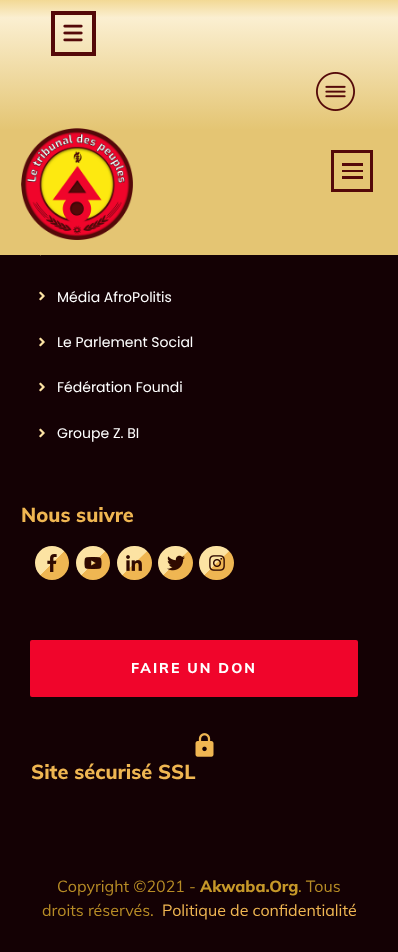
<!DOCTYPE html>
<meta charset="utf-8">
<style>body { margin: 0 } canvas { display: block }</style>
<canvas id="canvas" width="398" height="952"></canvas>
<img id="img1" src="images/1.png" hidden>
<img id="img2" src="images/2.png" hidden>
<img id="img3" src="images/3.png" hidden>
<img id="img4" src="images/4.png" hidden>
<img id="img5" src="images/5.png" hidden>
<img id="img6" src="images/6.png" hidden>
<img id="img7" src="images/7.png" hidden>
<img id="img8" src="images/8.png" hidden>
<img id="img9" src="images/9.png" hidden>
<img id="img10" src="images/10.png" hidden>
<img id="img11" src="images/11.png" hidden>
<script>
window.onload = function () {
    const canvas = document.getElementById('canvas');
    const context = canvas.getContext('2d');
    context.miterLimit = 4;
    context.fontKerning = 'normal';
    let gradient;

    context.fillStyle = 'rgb(20, 1, 4)';
    context.fillRect(0, 0, 398, 952);
    gradient = context.createLinearGradient(199, 0, 199, 255);
    gradient.addColorStop(0, 'rgb(242, 217, 149)');
    gradient.addColorStop(0.07, 'rgb(251, 239, 209)');
    gradient.addColorStop(0.51, 'rgb(228, 197, 115)');
    gradient.addColorStop(1, 'rgb(228, 197, 115)');
    context.fillStyle = gradient;
    context.fillRect(0, 0, 398, 255);
    context.strokeStyle = 'rgb(84, 9, 9)';
    context.lineWidth = 4;
    context.strokeRect(53, 13, 41, 41);
    context.drawImage(document.getElementById('img1'), 63, 24, 20, 18);
    context.drawImage(document.getElementById('img2'), 316, 72, 39, 39);
    context.drawImage(document.getElementById('img3'), 21, 128, 112, 112);
    context.fillStyle = 'rgb(84, 9, 9)';
    context.fillRect(342, 163, 21, 3);
    context.fillRect(342, 170, 21, 2);
    context.fillRect(342, 176, 21, 3);
    context.beginPath();
    context.moveTo(331, 150);
    context.lineTo(331, 192);
    context.lineTo(373, 192);
    context.lineTo(373, 150);
    context.closePath();
    context.moveTo(370, 189);
    context.lineTo(334, 189);
    context.lineTo(334, 153);
    context.lineTo(370, 153);
    context.closePath();
    context.fill();
    context.drawImage(document.getElementById('img4'), 40, 255, 1, 1);
    context.drawImage(document.getElementById('img5'), 39, 291, 6, 10);
    context.drawImage(document.getElementById('img5'), 39, 337, 6, 10);
    context.drawImage(document.getElementById('img5'), 39, 382, 6, 10);
    context.drawImage(document.getElementById('img5'), 39, 428, 6, 10);
    gradient = context.createLinearGradient(35, 546, 69, 580);
    gradient.addColorStop(0.5, 'rgb(252, 227, 163)');
    gradient.addColorStop(0.51, 'rgb(239, 182, 82)');
    context.fillStyle = gradient;
    context.beginPath();
    context.arc(52, 563, 17, 0, 2 * Math.PI);
    context.fill();
    context.drawImage(document.getElementById('img6'), 47, 554, 10, 18);
    gradient = context.createLinearGradient(76, 546, 110, 580);
    gradient.addColorStop(0.5, 'rgb(252, 227, 163)');
    gradient.addColorStop(0.51, 'rgb(239, 182, 82)');
    context.fillStyle = gradient;
    context.beginPath();
    context.arc(93, 563, 17, 0, 2 * Math.PI);
    context.fill();
    context.drawImage(document.getElementById('img7'), 84, 557, 18, 12);
    gradient = context.createLinearGradient(118, 546, 151, 580);
    gradient.addColorStop(0.5, 'rgb(252, 227, 163)');
    gradient.addColorStop(0.51, 'rgb(239, 182, 82)');
    context.fillStyle = gradient;
    context.beginPath();
    context.roundRect(117, 546, 35, 34, 17);
    context.fill();
    context.drawImage(document.getElementById('img8'), 126, 555, 16, 16);
    gradient = context.createLinearGradient(159, 546, 192, 580);
    gradient.addColorStop(0.5, 'rgb(252, 227, 163)');
    gradient.addColorStop(0.51, 'rgb(239, 182, 82)');
    context.fillStyle = gradient;
    context.beginPath();
    context.roundRect(158, 546, 35, 34, 17);
    context.fill();
    context.drawImage(document.getElementById('img9'), 167, 555, 18, 16);
    gradient = context.createLinearGradient(200, 546, 233, 580);
    gradient.addColorStop(0.5, 'rgb(252, 227, 163)');
    gradient.addColorStop(0.51, 'rgb(239, 182, 82)');
    context.fillStyle = gradient;
    context.beginPath();
    context.roundRect(199, 546, 35, 34, 17);
    context.fill();
    context.drawImage(document.getElementById('img10'), 209, 555, 16, 16);
    context.fillStyle = 'rgb(240, 5, 43)';
    context.beginPath();
    context.roundRect(30, 640, 328, 57, 2);
    context.fill();
    context.drawImage(document.getElementById('img11'), 195, 733, 19, 24);
    context.font = '14px Poppins';
    context.fillStyle = 'rgb(255, 255, 255)';
    context.fillText('Média AfroPolitis', 57, 302);
    context.fillText('Le Parlement Social', 57, 347);
    context.fillText('Fédération Foundi', 57, 392);
    context.fillText('Groupe Z. BI', 57, 438);
    context.font = '800 20px Muli';
    context.fillStyle = 'rgb(239, 182, 82)';
    context.fillText('Nous suivre', 21, 522);
    context.letterSpacing = '2px';
    context.font = '800 14px Muli';
    context.fillStyle = 'rgb(255, 255, 255)';
    context.fillText('FAIRE UN DON', 131, 673);
    context.letterSpacing = '0px';
    context.font = '800 20px Muli';
    context.fillStyle = 'rgb(239, 182, 82)';
    context.fillText('Site sécurisé SSL', 31, 779);
    context.font = '16px Muli';
    context.fillStyle = 'rgb(183, 140, 38)';
    context.fillText('Copyright ©2021 -', 57, 892);
    context.font = '800 16px Muli';
    context.fillStyle = 'rgb(198, 152, 41)';
    context.fillText('Akwaba.Org', 200, 892);
    context.font = '16px Muli';
    context.fillStyle = 'rgb(183, 140, 38)';
    context.fillText('. Tous', 298, 892);
    context.fillText('droits réservés.', 42, 916);
    context.fillStyle = 'rgb(239, 182, 82)';
    context.fillText('Politique de confidentialité', 162, 916);
};
</script>
